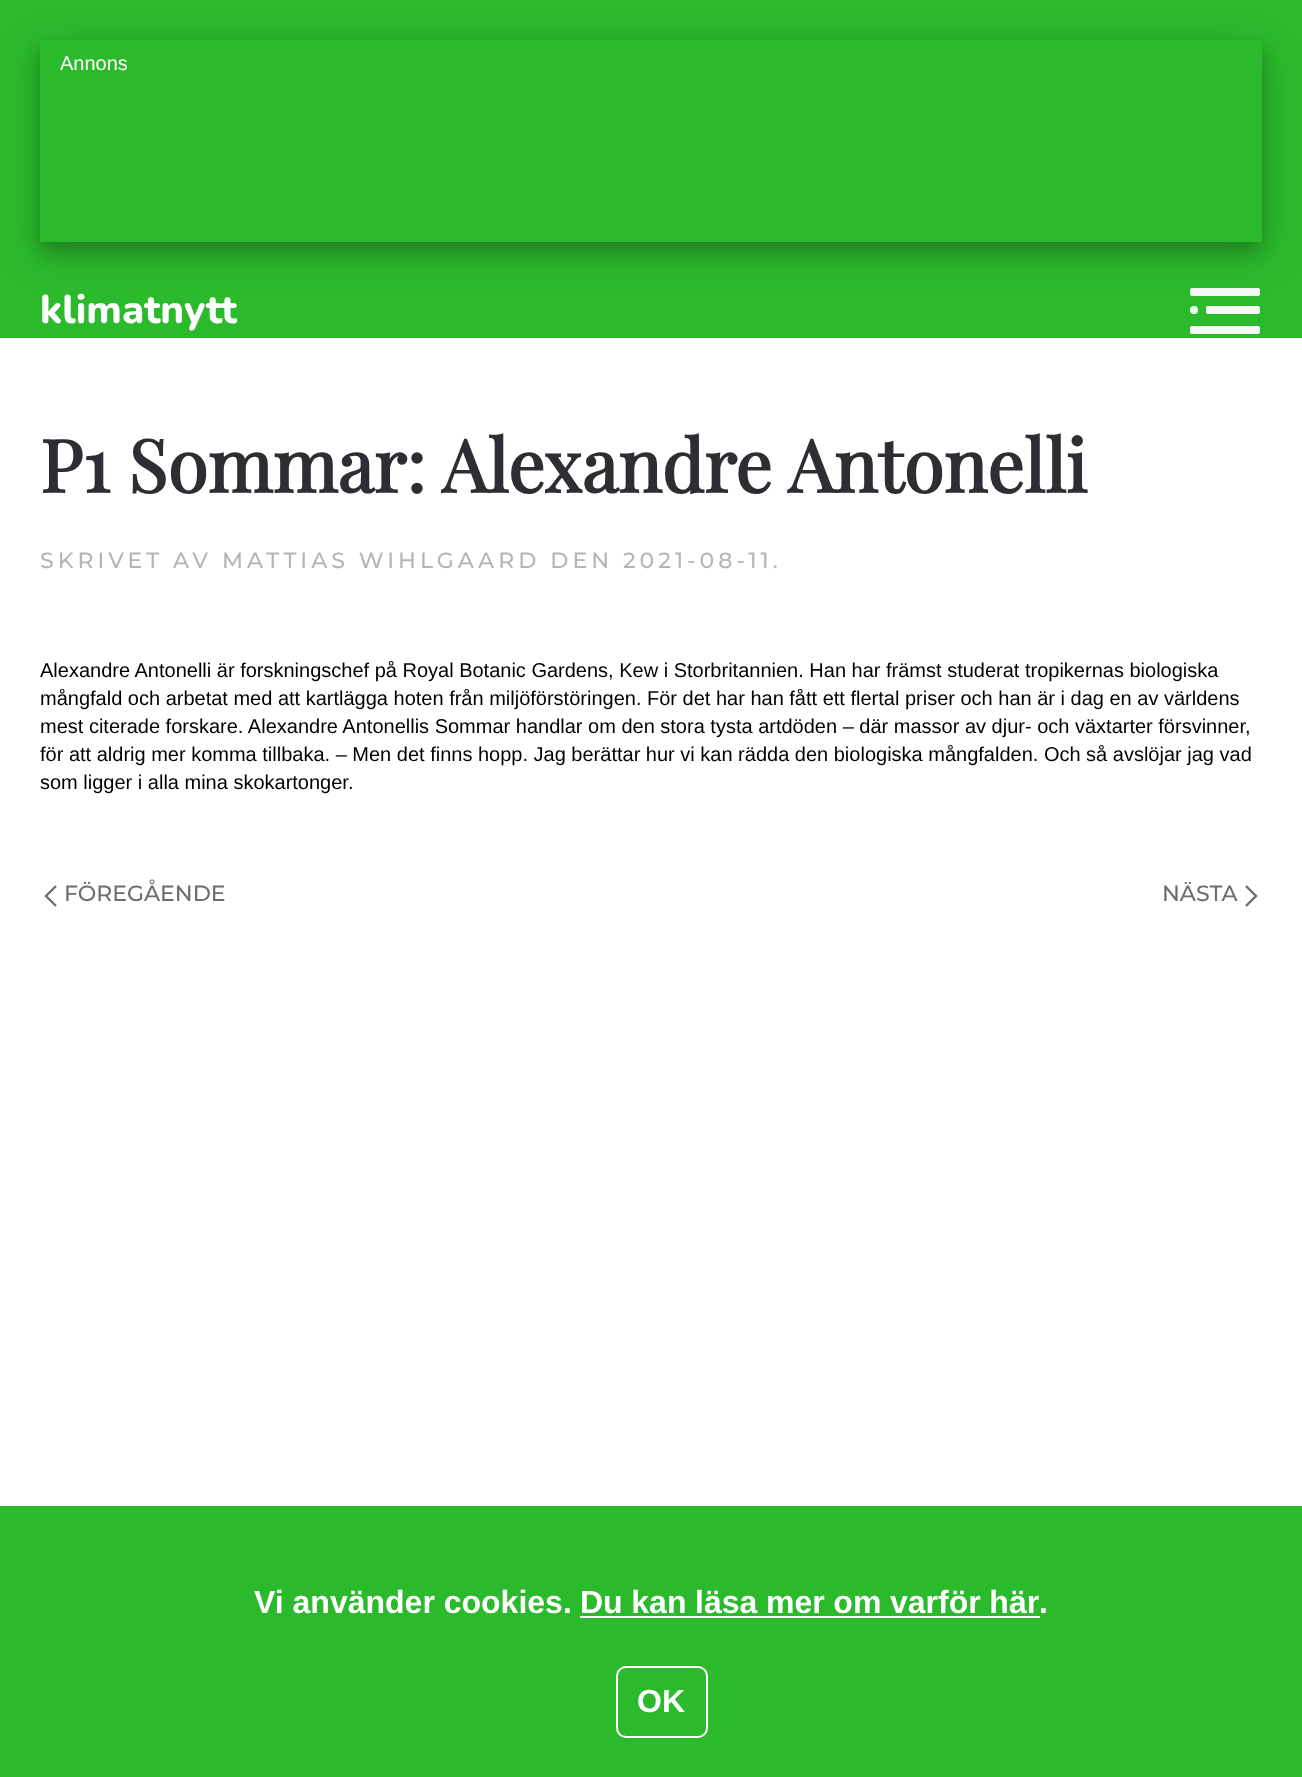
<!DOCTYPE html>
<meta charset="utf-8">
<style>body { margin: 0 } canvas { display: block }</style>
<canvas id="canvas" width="1302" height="1777"></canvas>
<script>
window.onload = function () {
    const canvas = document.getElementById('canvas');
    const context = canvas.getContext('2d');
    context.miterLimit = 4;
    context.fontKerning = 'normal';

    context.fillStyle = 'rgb(44, 186, 45)';
    context.fillRect(0, 0, 1302, 1777);
    context.save();
    context.beginPath();
    context.moveTo(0, 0);
    context.lineTo(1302, 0);
    context.lineTo(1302, 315);
    context.lineTo(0, 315);
    context.closePath();
    context.moveTo(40, 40);
    context.lineTo(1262, 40);
    context.lineTo(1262, 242);
    context.lineTo(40, 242);
    context.closePath();
    context.clip('evenodd');
    context.fillStyle = 'rgba(0, 0, 0, 0.19)';
    context.filter = 'blur(20px)';
    context.beginPath();
    context.rect(40, 52, 1222, 202);
    context.fill();
    context.filter = 'none';
    context.restore();
    context.save();
    context.beginPath();
    context.moveTo(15, 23);
    context.lineTo(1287, 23);
    context.lineTo(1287, 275);
    context.lineTo(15, 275);
    context.closePath();
    context.moveTo(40, 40);
    context.lineTo(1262, 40);
    context.lineTo(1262, 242);
    context.lineTo(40, 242);
    context.closePath();
    context.clip('evenodd');
    context.fillStyle = 'rgba(0, 0, 0, 0.2)';
    context.filter = 'blur(8px)';
    context.beginPath();
    context.rect(40, 48, 1222, 202);
    context.fill();
    context.filter = 'none';
    context.restore();
    context.fillStyle = 'rgb(244, 250, 244)';
    context.beginPath();
    context.roundRect(1190, 288, 70, 8, 2);
    context.fill();
    context.beginPath();
    context.arc(1194, 310, 4, 0, 2 * Math.PI);
    context.fill();
    context.beginPath();
    context.roundRect(1206, 306, 54, 8, 2);
    context.fill();
    context.beginPath();
    context.roundRect(1190, 326, 70, 8, 2);
    context.fill();
    context.fillStyle = 'rgb(255, 255, 255)';
    context.fillRect(0, 338, 1302, 1168);
    context.beginPath();
    context.moveTo(56, 886);
    context.lineTo(46, 896);
    context.lineTo(56, 906);
    context.strokeStyle = 'rgb(108, 109, 116)';
    context.lineWidth = 2.4;
    context.stroke();
    context.beginPath();
    context.moveTo(1246, 886);
    context.lineTo(1256, 896);
    context.lineTo(1246, 906);
    context.stroke();
    context.fillRect(580, 1616, 460, 2);
    context.beginPath();
    context.roundRect(617, 1667, 90, 70, 9);
    context.strokeStyle = 'rgb(255, 255, 255)';
    context.lineWidth = 2;
    context.stroke();
    context.font = '20px Liberation Sans';
    context.fillText('Annons', 60, 70);
    context.font = '200 40px Nunito';
    context.fillText('klimatnytt', 40, 323);
    context.font = 'bold 73.1px Playfair Display';
    context.fillStyle = 'rgb(45, 46, 51)';
    context.fillText('P1 Sommar: Alexandre Antonelli', 40, 493);
    context.letterSpacing = '4px';
    context.font = '100 22px Montserrat';
    context.fillStyle = 'rgb(180, 181, 186)';
    context.fillText('SKRIVET AV MATTIAS WIHLGAARD DEN 2021-08-11.', 40, 568);
    context.letterSpacing = '0px';
    context.font = '20px Liberation Sans';
    context.fillStyle = 'rgb(0, 0, 0)';
    context.fillText('Alexandre Antonelli är forskningschef på Royal Botanic Gardens, Kew i Storbritannien. Han har främst studerat tropikernas biologiska', 40, 677);
    context.fillText('mångfald och arbetat med att kartlägga hoten från miljöförstöringen. För det har han fått ett flertal priser och han är i dag en av världens', 40, 705);
    context.fillText('mest citerade forskare. Alexandre Antonellis Sommar handlar om den stora tysta artdöden – där massor av djur- och växtarter försvinner,', 40, 733);
    context.fillText('för att aldrig mer komma tillbaka. – Men det finns hopp. Jag berättar hur vi kan rädda den biologiska mångfalden. Och så avslöjar jag vad', 40, 761);
    context.fillText('som ligger i alla mina skokartonger.', 40, 789);
    context.font = '100 22px Montserrat';
    context.fillStyle = 'rgb(108, 109, 116)';
    context.fillText('FÖREGÅENDE', 64, 901);
    context.fillText('NÄSTA', 1162, 901);
    context.font = 'bold 32px Liberation Sans';
    context.fillStyle = 'rgb(255, 255, 255)';
    context.fillText('Vi använder cookies.', 254, 1613);
    context.wordSpacing = '-0.25px';
    context.fillText('Du kan läsa mer om varför här', 580, 1613);
    context.wordSpacing = '0px';
    context.fillText('.', 1039, 1613);
    context.fillText('OK', 637, 1712);
};
</script>
